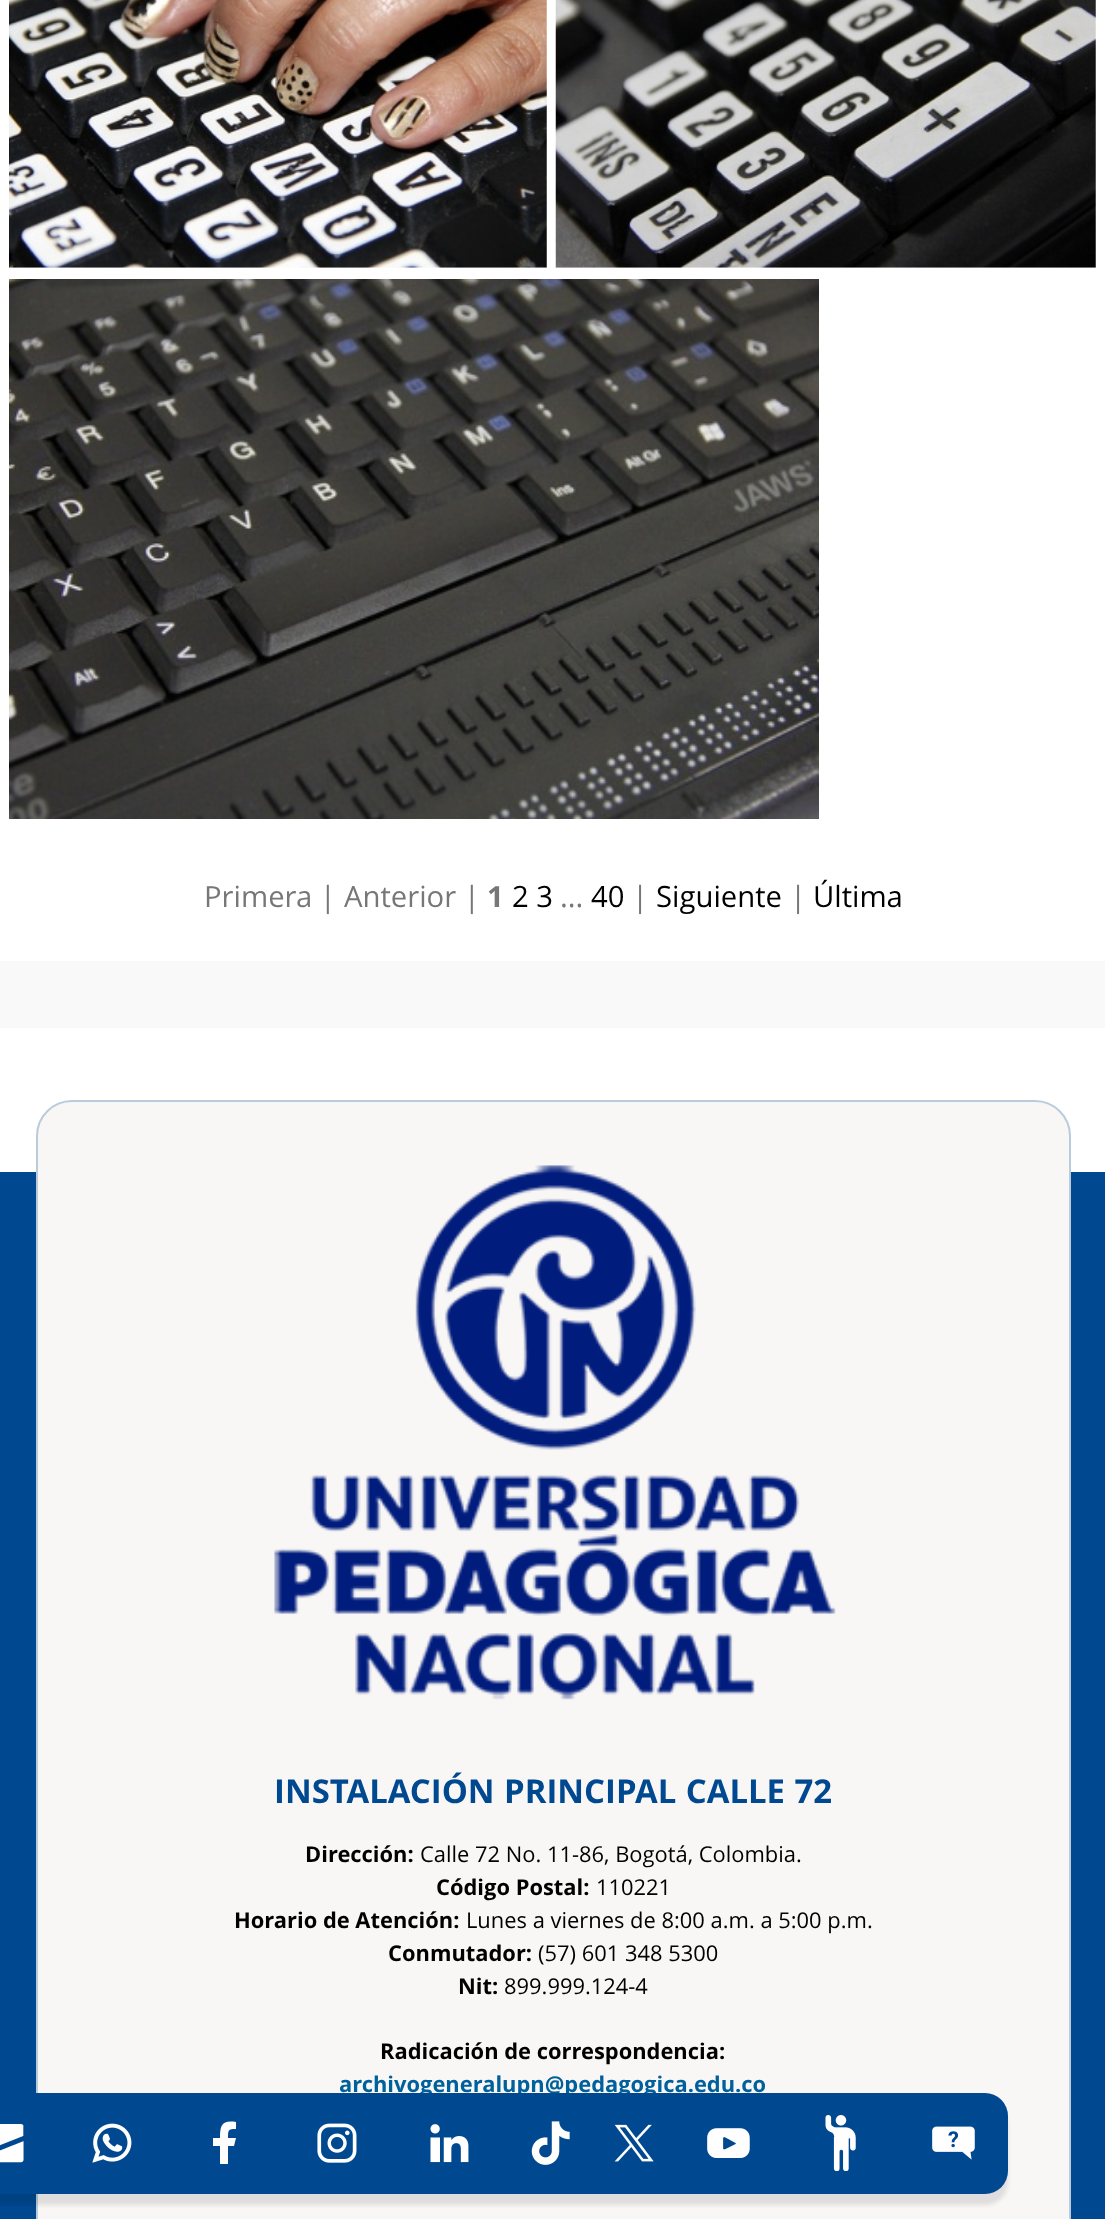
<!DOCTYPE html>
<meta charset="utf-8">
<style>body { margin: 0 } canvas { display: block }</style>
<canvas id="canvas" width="1105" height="2219"></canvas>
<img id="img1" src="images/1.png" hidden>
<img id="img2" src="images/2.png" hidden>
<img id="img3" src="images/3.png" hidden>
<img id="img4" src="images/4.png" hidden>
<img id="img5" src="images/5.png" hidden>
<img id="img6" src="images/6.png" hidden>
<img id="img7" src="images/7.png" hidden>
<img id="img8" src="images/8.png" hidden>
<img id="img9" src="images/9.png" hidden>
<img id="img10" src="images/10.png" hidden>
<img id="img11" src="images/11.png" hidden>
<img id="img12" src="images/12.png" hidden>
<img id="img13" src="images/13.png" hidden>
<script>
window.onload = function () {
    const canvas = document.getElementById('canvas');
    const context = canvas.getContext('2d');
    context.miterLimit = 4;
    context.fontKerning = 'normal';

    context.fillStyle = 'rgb(255, 255, 255)';
    context.fillRect(0, 0, 1105, 2219);
    context.drawImage(document.getElementById('img1'), 9, 0, 538, 268);
    context.drawImage(document.getElementById('img2'), 555, 0, 541, 268);
    context.drawImage(document.getElementById('img3'), 9, 279, 810, 540);
    context.fillStyle = 'rgb(249, 249, 249)';
    context.fillRect(0, 961, 1105, 67);
    context.fillStyle = 'rgb(0, 73, 145)';
    context.fillRect(0, 1172, 1105, 1047);
    context.fillStyle = 'rgb(249, 247, 246)';
    context.beginPath();
    context.roundRect(36, 1100, 1035, 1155, 36);
    context.fill();
    context.beginPath();
    context.roundRect(37, 1101, 1033, 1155, 35);
    context.strokeStyle = 'rgba(0, 73, 145, 0.25)';
    context.lineWidth = 2;
    context.stroke();
    context.drawImage(document.getElementById('img4'), 274, 1165, 562, 535);
    context.fillStyle = 'rgba(0, 0, 0, 0.1)';
    context.filter = 'blur(2px)';
    context.beginPath();
    context.roundRect(-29, 2104, 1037, 101, 23);
    context.fill();
    context.filter = 'none';
    context.font = '29.25px Open Sans';
    context.fillStyle = 'rgb(119, 119, 119)';
    context.fillText('Primera |', 204, 907);
    context.fillText('Anterior |', 344, 907);
    context.font = 'bold 29.25px Open Sans';
    context.fillText('1', 487, 907);
    context.font = '29.25px Open Sans';
    context.fillStyle = 'rgb(0, 0, 0)';
    context.fillText('2 3', 512, 907);
    context.fillStyle = 'rgb(119, 119, 119)';
    context.fillText('...', 560, 907);
    context.fillStyle = 'rgb(0, 0, 0)';
    context.fillText('40', 591, 907);
    context.fillStyle = 'rgb(119, 119, 119)';
    context.fillText('|', 632, 907);
    context.fillStyle = 'rgb(0, 0, 0)';
    context.fillText('Siguiente', 656, 907);
    context.fillStyle = 'rgb(119, 119, 119)';
    context.fillText('|', 790, 907);
    context.fillStyle = 'rgb(0, 0, 0)';
    context.fillText('Última', 813, 907);
    context.wordSpacing = '1px';
    context.font = 'bold 32.9px Open Sans';
    context.fillStyle = 'rgb(0, 73, 145)';
    context.fillText('INSTALACIÓN PRINCIPAL CALLE 72', 274, 1803);
    context.wordSpacing = '0px';
    context.font = 'bold 21.9px Open Sans';
    context.fillStyle = 'rgb(0, 0, 0)';
    context.fillText('Dirección:', 305, 1862);
    context.font = '21.9px Open Sans';
    context.fillText('Calle 72 No. 11-86, Bogotá, Colombia.', 420, 1862);
    context.font = 'bold 21.9px Open Sans';
    context.fillText('Código Postal:', 436, 1895);
    context.font = '21.9px Open Sans';
    context.fillText('110221', 596, 1895);
    context.font = 'bold 21.9px Open Sans';
    context.fillText('Horario de Atención:', 234, 1928);
    context.font = '21.9px Open Sans';
    context.fillText('Lunes a viernes de 8:00 a.m. a 5:00 p.m.', 466, 1928);
    context.font = 'bold 21.9px Open Sans';
    context.fillText('Conmutador:', 388, 1961);
    context.font = '21.9px Open Sans';
    context.fillText('(57) 601 348 5300', 538, 1961);
    context.font = 'bold 21.9px Open Sans';
    context.fillText('Nit:', 458, 1994);
    context.font = '21.9px Open Sans';
    context.fillText('899.999.124-4', 504, 1994);
    context.font = 'bold 21.9px Open Sans';
    context.fillText('Radicación de correspondencia:', 380, 2059);
    context.fillStyle = 'rgb(0, 96, 156)';
    context.fillText('archivogeneralupn@pedagogica.edu.co', 339, 2092);
    context.fillStyle = 'rgb(0, 73, 145)';
    context.beginPath();
    context.roundRect(-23, 2093, 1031, 101, 23);
    context.fill();
    context.drawImage(document.getElementById('img5'), 0, 2124, 24, 39);
    context.drawImage(document.getElementById('img6'), 92, 2123, 40, 40);
    context.fillStyle = 'rgb(255, 255, 255)';
    context.beginPath();
    context.moveTo(234, 2146);
    context.lineTo(236, 2138);
    context.lineTo(228, 2138);
    context.bezierCurveTo(228, 2130, 228, 2129, 236, 2129);
    context.lineTo(236, 2122);
    context.bezierCurveTo(222, 2120, 220, 2125, 220, 2138);
    context.lineTo(213, 2138);
    context.lineTo(213, 2146);
    context.lineTo(220, 2146);
    context.lineTo(220, 2164);
    context.lineTo(228, 2164);
    context.lineTo(228, 2146);
    context.closePath();
    context.fill();
    context.drawImage(document.getElementById('img7'), 317, 2123, 40, 40);
    context.drawImage(document.getElementById('img8'), 430, 2124, 39, 39);
    context.drawImage(document.getElementById('img9'), 531, 2121, 39, 44);
    context.drawImage(document.getElementById('img10'), 614, 2124, 40, 38);
    context.drawImage(document.getElementById('img11'), 707, 2128, 43, 30);
    context.drawImage(document.getElementById('img12'), 825, 2115, 31, 56);
    context.drawImage(document.getElementById('img13'), 932, 2126, 43, 34);
};
</script>
